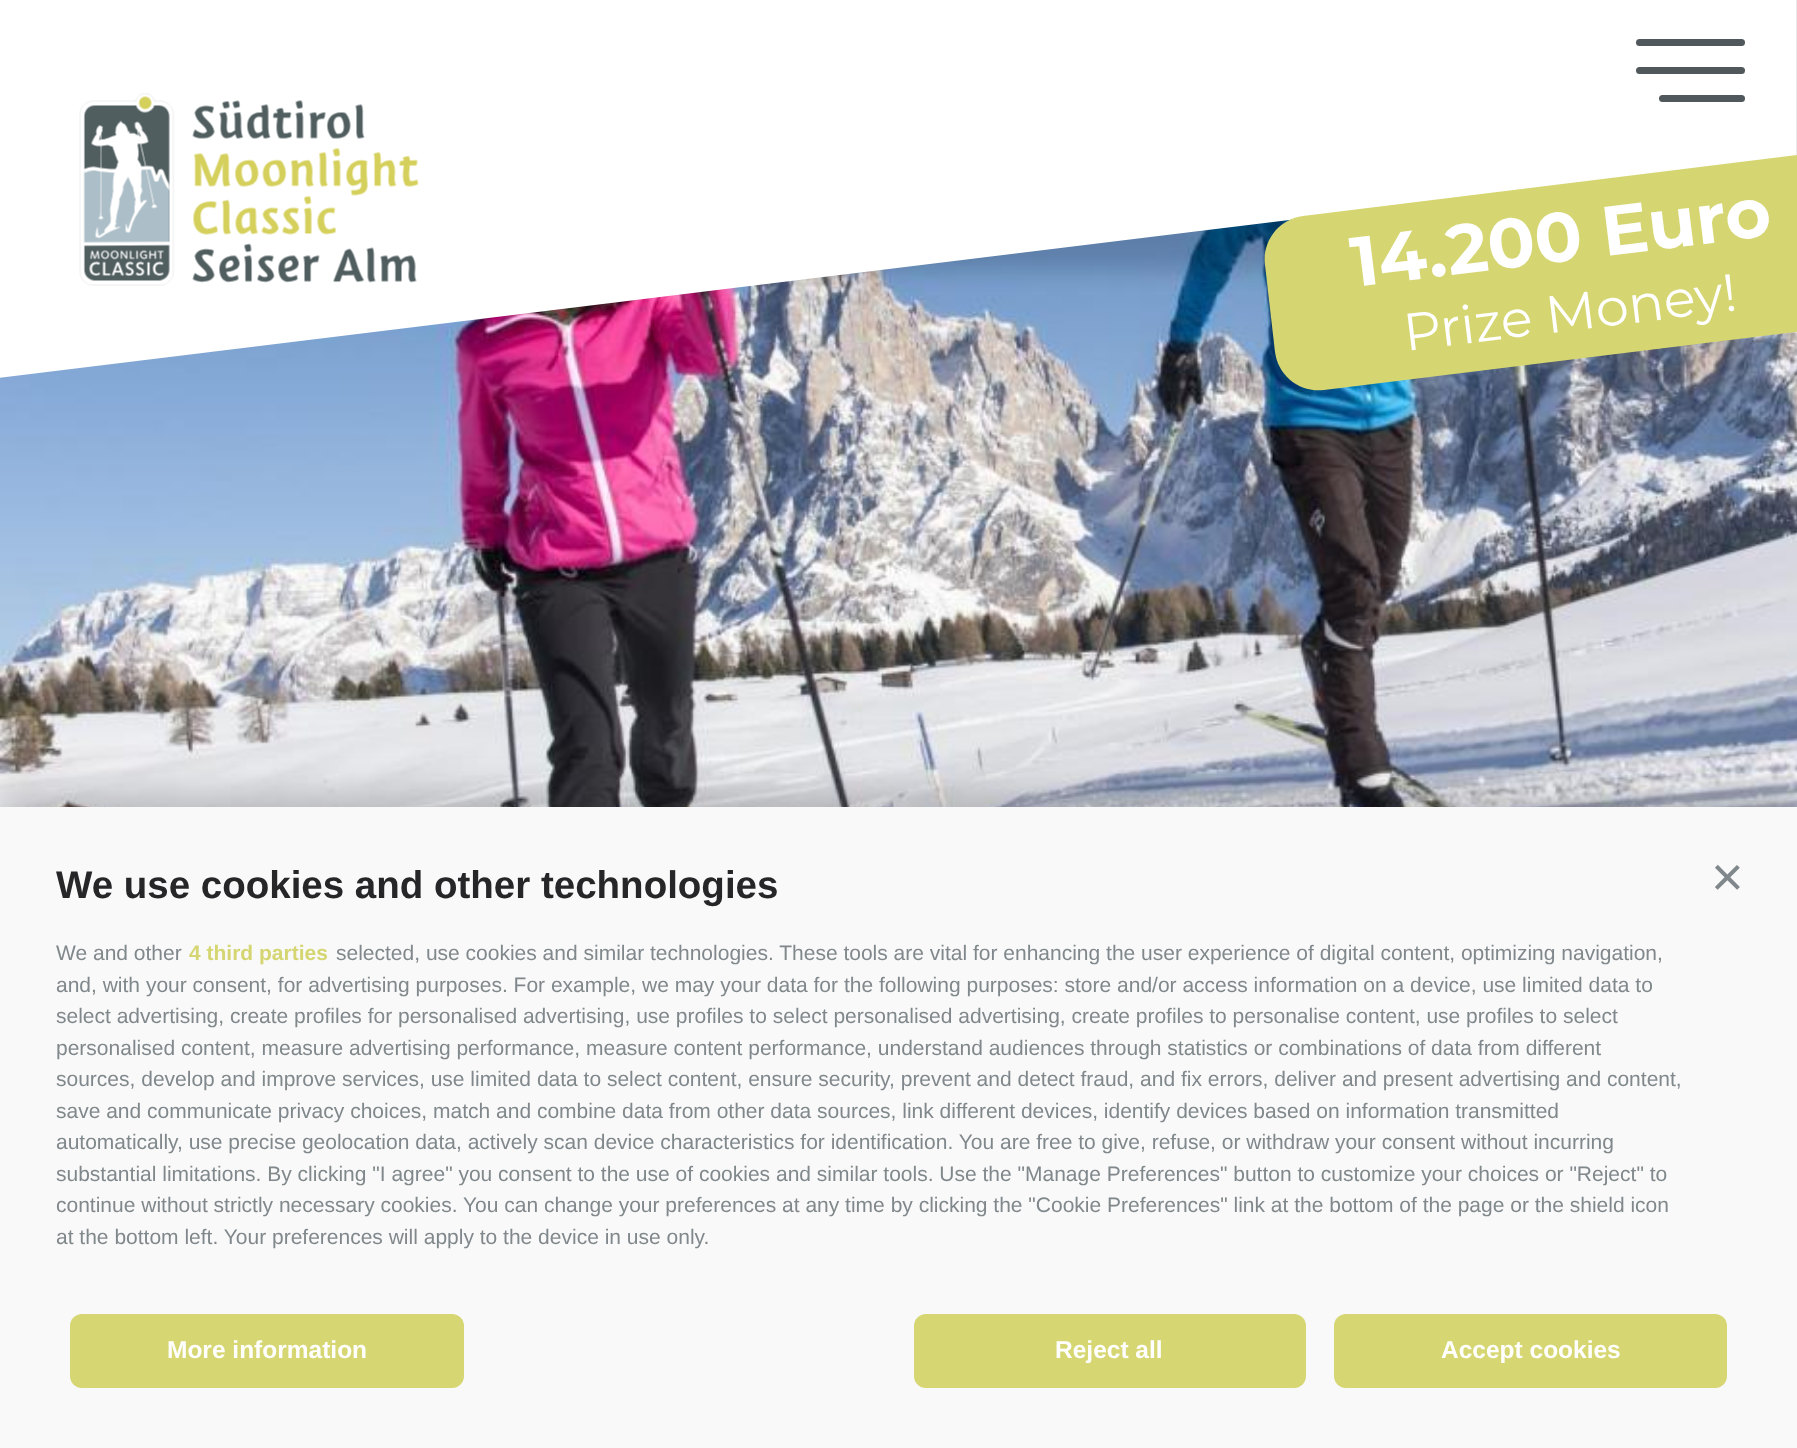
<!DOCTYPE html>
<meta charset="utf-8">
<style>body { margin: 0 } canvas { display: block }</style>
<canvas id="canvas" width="1797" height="1448"></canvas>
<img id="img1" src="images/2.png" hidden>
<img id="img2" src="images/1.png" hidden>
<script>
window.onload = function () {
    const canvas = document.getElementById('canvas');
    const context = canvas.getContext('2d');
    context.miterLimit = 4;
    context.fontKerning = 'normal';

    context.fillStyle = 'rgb(255, 255, 255)';
    context.fillRect(0, 0, 1797, 1448);
    context.drawImage(document.getElementById('img1'), 0, 219, 1797, 588);
    context.fillStyle = 'rgba(0, 0, 0, 0.16)';
    context.filter = 'blur(10.5px)';
    context.beginPath();
    context.rect(0, -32, 1797, 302);
    context.fill();
    context.filter = 'none';
    context.fillStyle = 'rgb(255, 255, 255)';
    context.beginPath();
    context.moveTo(-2, -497);
    context.lineTo(1796, -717);
    context.lineTo(1796, 158);
    context.lineTo(-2, 378);
    context.closePath();
    context.fill();
    context.fillStyle = 'rgb(80, 88, 91)';
    context.beginPath();
    context.roundRect(1636, 39, 109, 7, 3.5);
    context.fill();
    context.beginPath();
    context.roundRect(1636, 67, 109, 7, 3.5);
    context.fill();
    context.beginPath();
    context.roundRect(1659, 95, 86, 7, 3.5);
    context.fill();
    context.drawImage(document.getElementById('img2'), 79, 93, 340, 193);
    context.fillStyle = 'rgb(213, 214, 114)';
    context.beginPath();
    context.moveTo(1303, 216);
    context.lineTo(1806, 154);
    context.bezierCurveTo(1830, 151, 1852, 168, 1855, 192);
    context.lineTo(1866, 279);
    context.bezierCurveTo(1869, 303, 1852, 325, 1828, 328);
    context.lineTo(1324, 390);
    context.bezierCurveTo(1300, 393, 1278, 376, 1275, 352);
    context.lineTo(1265, 265);
    context.bezierCurveTo(1262, 241, 1279, 219, 1303, 216);
    context.closePath();
    context.fill();
    context.fillStyle = 'rgba(0, 0, 0, 0.2)';
    context.filter = 'blur(17.5px)';
    context.beginPath();
    context.rect(0, 793, 1797, 642);
    context.fill();
    context.filter = 'none';
    context.fillStyle = 'rgb(249, 249, 249)';
    context.fillRect(0, 807, 1797, 641);
    context.fillStyle = 'rgb(214, 214, 114)';
    context.beginPath();
    context.roundRect(70, 1314, 394, 74, 12);
    context.fill();
    context.beginPath();
    context.roundRect(914, 1314, 392, 74, 12);
    context.fill();
    context.beginPath();
    context.roundRect(1334, 1314, 393, 74, 12);
    context.fill();
    context.font = 'bold 70px Montserrat';
    context.fillStyle = 'rgb(255, 255, 255)';
    context.save();
    context.translate(1354, 287);
    context.rotate(-7 * Math.PI / 180);
    context.fillText('14.200 Euro', 0, 0);
    context.restore();
    context.font = '52.5px Montserrat';
    context.save();
    context.translate(1406, 351);
    context.rotate(-7 * Math.PI / 180);
    context.fillText('Prize Money!', 0, 0);
    context.restore();
    context.font = 'bold 38.5px Liberation Sans';
    context.fillStyle = 'rgb(38, 38, 40)';
    context.fillText('We use cookies and other technologies', 56, 898);
    context.font = '56px Liberation Sans';
    context.fillStyle = 'rgb(128, 136, 140)';
    context.fillText('×', 1711, 896);
    context.font = '21px Liberation Sans';
    context.fillText('We and other', 56, 960);
    context.font = 'bold 21px Liberation Sans';
    context.fillStyle = 'rgb(213, 214, 114)';
    context.fillText('4 third parties', 189, 960);
    context.font = '21px Liberation Sans';
    context.fillStyle = 'rgb(128, 136, 140)';
    context.fillText('selected, use cookies and similar technologies. These tools are vital for enhancing the user experience of digital content, optimizing navigation,', 336, 960);
    context.fillText('and, with your consent, for advertising purposes. For example, we may your data for the following purposes: store and/or access information on a device, use limited data to', 56, 992);
    context.fillText('select advertising, create profiles for personalised advertising, use profiles to select personalised advertising, create profiles to personalise content, use profiles to select', 56, 1023);
    context.fillText('personalised content, measure advertising performance, measure content performance, understand audiences through statistics or combinations of data from different', 56, 1055);
    context.fillText('sources, develop and improve services, use limited data to select content, ensure security, prevent and detect fraud, and fix errors, deliver and present advertising and content,', 56, 1086);
    context.fillText('save and communicate privacy choices, match and combine data from other data sources, link different devices, identify devices based on information transmitted', 56, 1118);
    context.fillText('automatically, use precise geolocation data, actively scan device characteristics for identification. You are free to give, refuse, or withdraw your consent without incurring', 56, 1149);
    context.fillText('substantial limitations. By clicking "I agree" you consent to the use of cookies and similar tools. Use the "Manage Preferences" button to customize your choices or "Reject" to', 56, 1181);
    context.fillText('continue without strictly necessary cookies. You can change your preferences at any time by clicking the "Cookie Preferences" link at the bottom of the page or the shield icon', 56, 1212);
    context.fillText('at the bottom left. Your preferences will apply to the device in use only.', 56, 1244);
    context.font = 'bold 24.5px Liberation Sans';
    context.fillStyle = 'rgb(255, 255, 255)';
    context.fillText('More information', 167, 1358);
    context.fillText('Reject all', 1055, 1358);
    context.fillText('Accept cookies', 1441, 1358);
};
</script>
